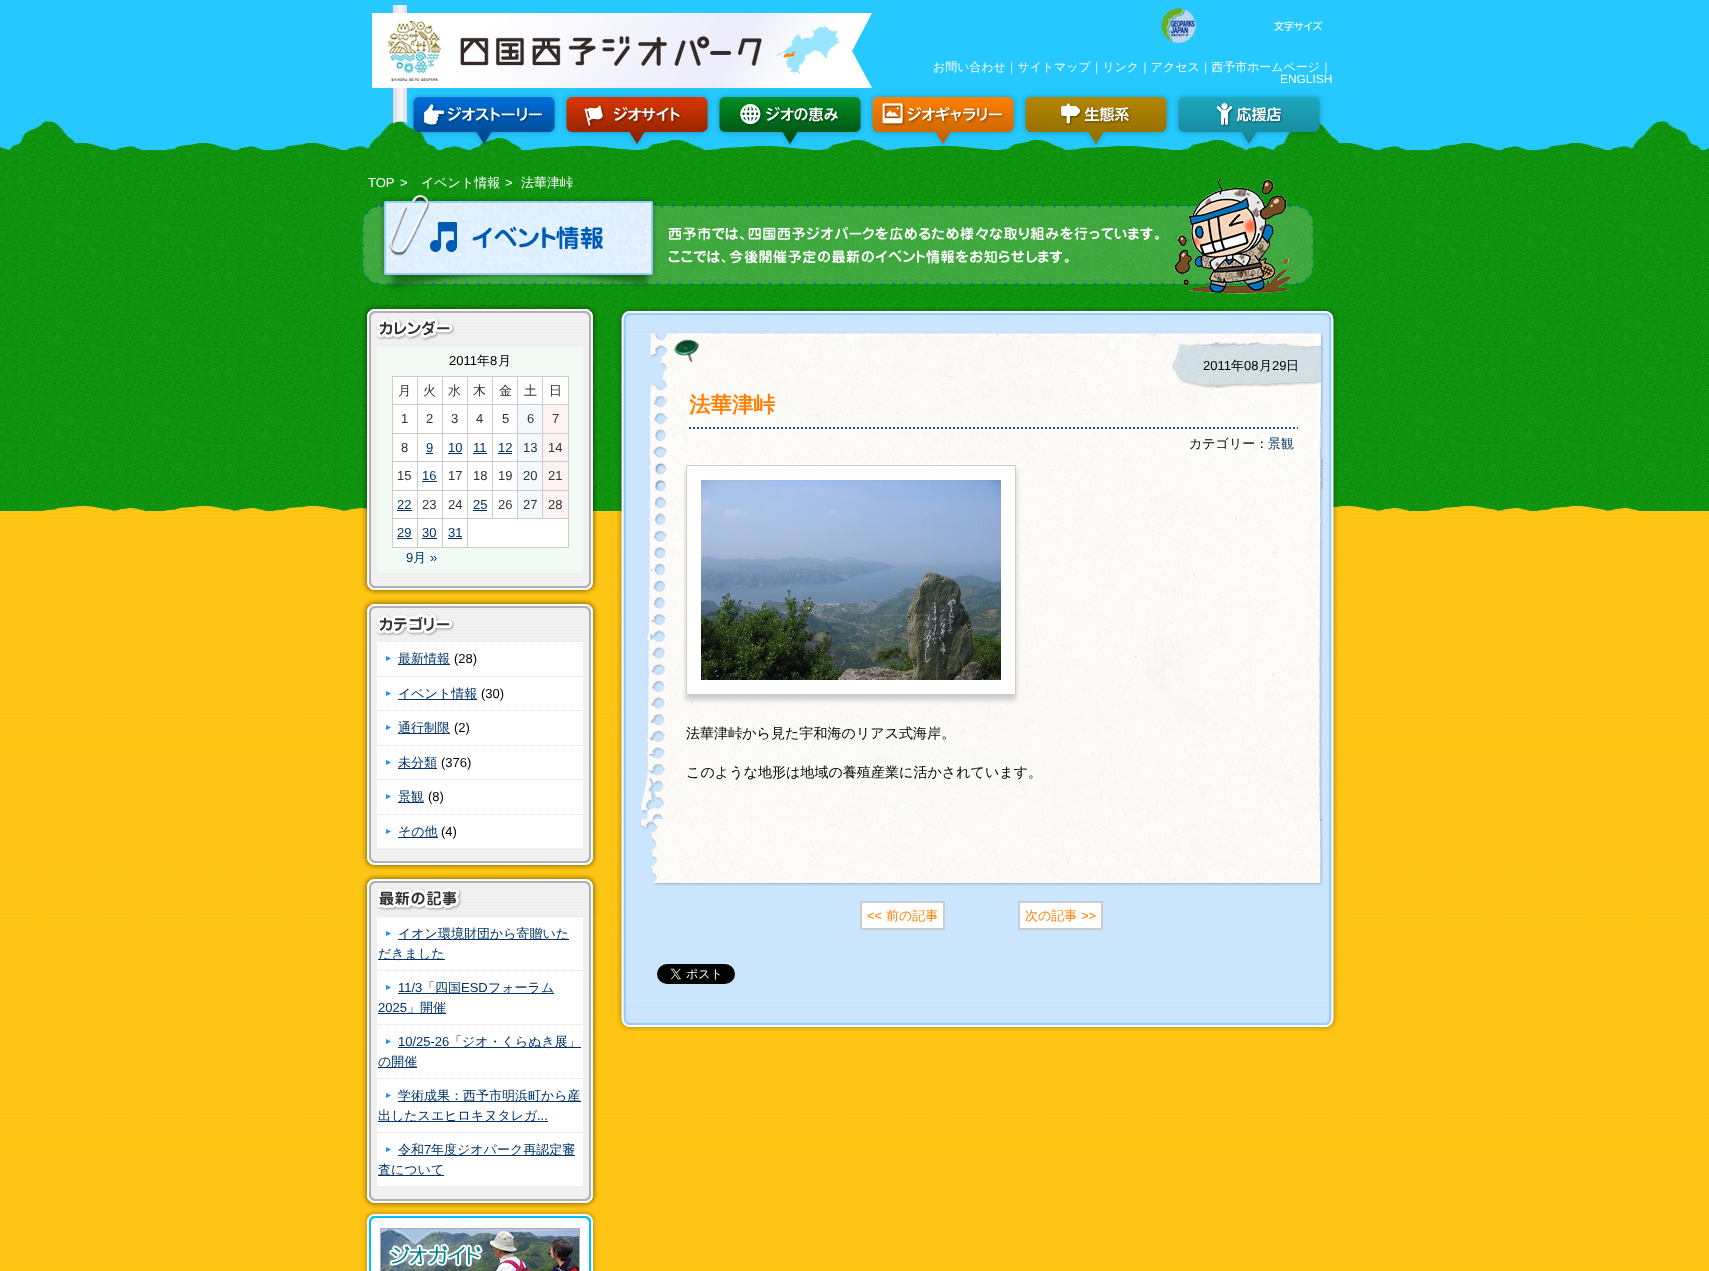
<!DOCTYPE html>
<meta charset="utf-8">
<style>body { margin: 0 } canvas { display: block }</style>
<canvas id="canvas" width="1709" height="1271"></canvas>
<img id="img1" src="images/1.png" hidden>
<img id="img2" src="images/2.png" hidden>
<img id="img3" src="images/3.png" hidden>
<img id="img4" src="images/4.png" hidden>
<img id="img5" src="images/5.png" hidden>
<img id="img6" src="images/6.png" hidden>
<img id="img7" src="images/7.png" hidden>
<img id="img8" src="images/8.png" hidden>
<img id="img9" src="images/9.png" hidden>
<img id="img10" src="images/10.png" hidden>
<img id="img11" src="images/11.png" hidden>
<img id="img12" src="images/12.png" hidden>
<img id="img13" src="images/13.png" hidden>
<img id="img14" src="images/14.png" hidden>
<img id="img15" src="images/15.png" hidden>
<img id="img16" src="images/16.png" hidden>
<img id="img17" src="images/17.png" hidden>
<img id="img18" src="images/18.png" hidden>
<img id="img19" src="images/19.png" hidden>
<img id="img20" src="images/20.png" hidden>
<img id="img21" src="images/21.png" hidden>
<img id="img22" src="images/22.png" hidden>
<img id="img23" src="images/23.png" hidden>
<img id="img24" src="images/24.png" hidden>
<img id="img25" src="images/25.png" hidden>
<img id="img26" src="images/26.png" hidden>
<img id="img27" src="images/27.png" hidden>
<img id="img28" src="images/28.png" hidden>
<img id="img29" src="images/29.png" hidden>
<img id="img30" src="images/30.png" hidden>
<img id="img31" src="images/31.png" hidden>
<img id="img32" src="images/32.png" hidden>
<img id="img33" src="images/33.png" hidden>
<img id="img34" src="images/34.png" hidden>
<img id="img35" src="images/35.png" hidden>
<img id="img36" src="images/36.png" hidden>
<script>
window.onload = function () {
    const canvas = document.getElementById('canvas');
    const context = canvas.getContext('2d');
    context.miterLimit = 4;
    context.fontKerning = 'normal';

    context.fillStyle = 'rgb(255, 255, 255)';
    context.fillRect(0, 0, 1709, 1271);
    context.drawImage(document.getElementById('img1'), 0, 512, 1709, 759);
    context.drawImage(document.getElementById('img2'), 0, 0, 1709, 512);
    context.drawImage(document.getElementById('img3'), 372, 5, 500, 119);
    context.drawImage(document.getElementById('img4'), 1161, 8, 35, 35);
    context.drawImage(document.getElementById('img5'), 1274, 21, 49, 10);
    context.drawImage(document.getElementById('img6'), 409, 93, 150, 53);
    context.drawImage(document.getElementById('img7'), 562, 93, 150, 53);
    context.drawImage(document.getElementById('img8'), 715, 93, 150, 53);
    context.drawImage(document.getElementById('img9'), 868, 93, 150, 53);
    context.drawImage(document.getElementById('img10'), 1021, 93, 150, 53);
    context.drawImage(document.getElementById('img11'), 1174, 93, 150, 53);
    context.drawImage(document.getElementById('img12'), 363, 178, 950, 116);
    context.drawImage(document.getElementById('img13'), 362, 573, 235, 22);
    context.drawImage(document.getElementById('img14'), 362, 304, 236, 42);
    context.drawImage(document.getElementById('img15'), 376, 318, 79, 23);
    context.drawImage(document.getElementById('img16'), 362, 346, 235, 227);
    context.fillStyle = 'rgb(241, 250, 245)';
    context.fillRect(377, 346, 206, 227);
    context.fillStyle = 'rgb(255, 255, 255)';
    context.fillRect(393, 377, 24, 27);
    context.fillStyle = 'rgb(204, 204, 204)';
    context.fillRect(542, 376, 27, 1);
    context.fillRect(392, 404, 177, 1);
    context.fillRect(392, 433, 177, 1);
    context.fillRect(392, 461, 177, 1);
    context.fillRect(392, 490, 177, 1);
    context.fillRect(392, 518, 177, 1);
    context.fillRect(542, 404, 1, 115);
    context.fillRect(542, 376, 1, 29);
    context.fillRect(517, 376, 26, 1);
    context.fillRect(517, 404, 1, 115);
    context.fillRect(517, 376, 1, 29);
    context.fillRect(492, 376, 26, 1);
    context.fillRect(492, 404, 1, 115);
    context.fillRect(492, 376, 1, 29);
    context.fillRect(467, 376, 26, 1);
    context.fillRect(568, 518, 1, 30);
    context.fillRect(392, 547, 177, 1);
    context.fillRect(467, 404, 1, 144);
    context.fillRect(467, 376, 1, 29);
    context.fillRect(442, 376, 26, 1);
    context.fillRect(442, 404, 1, 144);
    context.fillRect(442, 376, 1, 29);
    context.fillRect(417, 376, 26, 1);
    context.fillRect(417, 404, 1, 144);
    context.fillRect(417, 376, 1, 29);
    context.fillRect(392, 376, 26, 1);
    context.fillRect(392, 518, 1, 30);
    context.fillRect(392, 490, 1, 29);
    context.fillRect(392, 461, 1, 30);
    context.fillRect(392, 433, 1, 29);
    context.fillRect(392, 404, 1, 30);
    context.fillRect(392, 376, 1, 29);
    context.fillStyle = 'rgb(255, 255, 255)';
    context.fillRect(418, 377, 24, 27);
    context.fillRect(443, 377, 24, 27);
    context.fillRect(468, 377, 24, 27);
    context.fillRect(493, 377, 24, 27);
    context.fillRect(518, 377, 24, 27);
    context.fillRect(543, 377, 25, 27);
    context.fillStyle = 'rgb(204, 204, 204)';
    context.fillRect(568, 490, 1, 29);
    context.fillRect(568, 461, 1, 30);
    context.fillRect(568, 433, 1, 29);
    context.fillRect(568, 404, 1, 30);
    context.fillRect(568, 376, 1, 29);
    context.fillStyle = 'rgb(255, 255, 255)';
    context.fillRect(393, 405, 24, 28);
    context.fillRect(418, 405, 24, 28);
    context.fillRect(443, 405, 24, 28);
    context.fillRect(468, 405, 24, 28);
    context.fillRect(493, 405, 24, 28);
    context.fillStyle = 'rgb(243, 250, 254)';
    context.fillRect(518, 405, 24, 28);
    context.fillStyle = 'rgb(255, 242, 242)';
    context.fillRect(543, 405, 25, 28);
    context.fillStyle = 'rgb(255, 255, 255)';
    context.fillRect(393, 434, 24, 27);
    context.fillRect(418, 434, 24, 27);
    context.fillStyle = 'rgb(0, 51, 102)';
    context.fillRect(426, 453, 7, 1);
    context.fillStyle = 'rgb(255, 255, 255)';
    context.fillRect(443, 434, 24, 27);
    context.fillStyle = 'rgb(0, 51, 102)';
    context.fillRect(448, 453, 14, 1);
    context.fillStyle = 'rgb(255, 255, 255)';
    context.fillRect(468, 434, 24, 27);
    context.fillStyle = 'rgb(0, 51, 102)';
    context.fillRect(473, 453, 14, 1);
    context.fillStyle = 'rgb(255, 255, 255)';
    context.fillRect(493, 434, 24, 27);
    context.fillStyle = 'rgb(0, 51, 102)';
    context.fillRect(498, 453, 14, 1);
    context.fillStyle = 'rgb(243, 250, 254)';
    context.fillRect(518, 434, 24, 27);
    context.fillStyle = 'rgb(255, 242, 242)';
    context.fillRect(543, 434, 25, 27);
    context.fillStyle = 'rgb(255, 255, 255)';
    context.fillRect(393, 462, 24, 28);
    context.fillRect(418, 462, 24, 28);
    context.fillStyle = 'rgb(0, 51, 102)';
    context.fillRect(422, 481, 15, 1);
    context.fillStyle = 'rgb(255, 255, 255)';
    context.fillRect(443, 462, 24, 28);
    context.fillRect(468, 462, 24, 28);
    context.fillRect(493, 462, 24, 28);
    context.fillStyle = 'rgb(243, 250, 254)';
    context.fillRect(518, 462, 24, 28);
    context.fillStyle = 'rgb(255, 242, 242)';
    context.fillRect(543, 462, 25, 28);
    context.fillStyle = 'rgb(255, 255, 255)';
    context.fillRect(393, 491, 24, 27);
    context.fillStyle = 'rgb(0, 51, 102)';
    context.fillRect(397, 510, 15, 1);
    context.fillStyle = 'rgb(255, 255, 255)';
    context.fillRect(418, 491, 24, 27);
    context.fillRect(443, 491, 24, 27);
    context.fillRect(468, 491, 24, 27);
    context.fillStyle = 'rgb(0, 51, 102)';
    context.fillRect(473, 510, 14, 1);
    context.fillStyle = 'rgb(255, 255, 255)';
    context.fillRect(493, 491, 24, 27);
    context.fillStyle = 'rgb(243, 250, 254)';
    context.fillRect(518, 491, 24, 27);
    context.fillStyle = 'rgb(255, 242, 242)';
    context.fillRect(543, 491, 25, 27);
    context.fillStyle = 'rgb(255, 255, 255)';
    context.fillRect(393, 519, 24, 28);
    context.fillStyle = 'rgb(0, 51, 102)';
    context.fillRect(397, 538, 15, 1);
    context.fillStyle = 'rgb(255, 255, 255)';
    context.fillRect(418, 519, 24, 28);
    context.fillStyle = 'rgb(0, 51, 102)';
    context.fillRect(422, 538, 15, 1);
    context.fillStyle = 'rgb(255, 255, 255)';
    context.fillRect(443, 519, 24, 28);
    context.fillStyle = 'rgb(0, 51, 102)';
    context.fillRect(448, 538, 14, 1);
    context.fillStyle = 'rgb(255, 255, 255)';
    context.fillRect(468, 519, 100, 28);
    context.drawImage(document.getElementById('img17'), 362, 848, 235, 22);
    context.drawImage(document.getElementById('img18'), 362, 599, 236, 42);
    context.drawImage(document.getElementById('img19'), 376, 613, 79, 23);
    context.drawImage(document.getElementById('img20'), 362, 641, 235, 207);
    context.beginPath();
    context.moveTo(378, 641.5);
    context.lineTo(584, 641.5);
    context.strokeStyle = 'rgb(221, 220, 220)';
    context.setLineDash([1, 1]);
    context.stroke();
    context.drawImage(document.getElementById('img21'), 386, 656, 5, 5);
    context.fillStyle = 'rgb(0, 51, 102)';
    context.fillRect(398, 664, 52, 1);
    context.beginPath();
    context.moveTo(378, 676.5);
    context.lineTo(584, 676.5);
    context.stroke();
    context.drawImage(document.getElementById('img21'), 386, 691, 5, 5);
    context.fillRect(398, 699, 79, 1);
    context.beginPath();
    context.moveTo(378, 710.5);
    context.lineTo(584, 710.5);
    context.stroke();
    context.drawImage(document.getElementById('img21'), 386, 725, 5, 5);
    context.fillRect(398, 733, 52, 1);
    context.beginPath();
    context.moveTo(378, 745.5);
    context.lineTo(584, 745.5);
    context.stroke();
    context.drawImage(document.getElementById('img21'), 386, 760, 5, 5);
    context.fillRect(398, 768, 39, 1);
    context.beginPath();
    context.moveTo(378, 779.5);
    context.lineTo(584, 779.5);
    context.stroke();
    context.drawImage(document.getElementById('img21'), 386, 794, 5, 5);
    context.fillRect(398, 802, 26, 1);
    context.beginPath();
    context.moveTo(378, 814.5);
    context.lineTo(584, 814.5);
    context.stroke();
    context.drawImage(document.getElementById('img21'), 386, 829, 5, 5);
    context.fillRect(398, 837, 40, 1);
    context.drawImage(document.getElementById('img22'), 362, 1186, 235, 22);
    context.drawImage(document.getElementById('img23'), 362, 874, 236, 42);
    context.drawImage(document.getElementById('img24'), 376, 888, 86, 23);
    context.drawImage(document.getElementById('img25'), 362, 916, 235, 270);
    context.beginPath();
    context.moveTo(378, 916.5);
    context.lineTo(584, 916.5);
    context.stroke();
    context.drawImage(document.getElementById('img21'), 386, 931, 5, 5);
    context.fillRect(398, 939, 171, 1);
    context.fillRect(378, 959, 67, 1);
    context.beginPath();
    context.moveTo(378, 970.5);
    context.lineTo(584, 970.5);
    context.stroke();
    context.drawImage(document.getElementById('img21'), 386, 985, 5, 5);
    context.fillRect(398, 993, 156, 1);
    context.fillRect(378, 1013, 68, 1);
    context.beginPath();
    context.moveTo(378, 1024.5);
    context.lineTo(584, 1024.5);
    context.stroke();
    context.drawImage(document.getElementById('img21'), 386, 1039, 5, 5);
    context.fillRect(398, 1047, 183, 1);
    context.fillRect(378, 1067, 39, 1);
    context.beginPath();
    context.moveTo(378, 1078.5);
    context.lineTo(584, 1078.5);
    context.stroke();
    context.drawImage(document.getElementById('img21'), 386, 1093, 5, 5);
    context.fillRect(398, 1101, 183, 1);
    context.fillRect(378, 1121, 170, 1);
    context.beginPath();
    context.moveTo(378, 1132.5);
    context.lineTo(584, 1132.5);
    context.stroke();
    context.drawImage(document.getElementById('img21'), 386, 1147, 5, 5);
    context.fillRect(398, 1155, 177, 1);
    context.fillRect(378, 1175, 66, 1);
    context.drawImage(document.getElementById('img26'), 363, 1210, 234, 12);
    context.drawImage(document.getElementById('img27'), 363, 1222, 234, 49);
    context.drawImage(document.getElementById('img28'), 380, 1228, 200, 43);
    context.drawImage(document.getElementById('img29'), 617, 307, 721, 25);
    context.drawImage(document.getElementById('img30'), 617, 1006, 721, 25);
    context.drawImage(document.getElementById('img31'), 617, 332, 721, 674);
    context.drawImage(document.getElementById('img32'), 640, 819, 683, 67);
    context.drawImage(document.getElementById('img33'), 648, 332, 676, 157);
    context.beginPath();
    context.moveTo(689, 428);
    context.lineTo(1298, 428);
    context.strokeStyle = 'rgb(0, 89, 183)';
    context.lineWidth = 2;
    context.setLineDash([2, 2]);
    context.stroke();
    context.drawImage(document.getElementById('img34'), 640, 460, 683, 361);
    context.fillStyle = 'rgb(204, 204, 204)';
    context.filter = 'blur(2.5px)';
    context.beginPath();
    context.rect(686, 470, 330, 230);
    context.fill();
    context.filter = 'none';
    context.fillStyle = 'rgb(255, 255, 255)';
    context.beginPath();
    context.rect(686.5, 465.5, 329, 229);
    context.fill();
    context.strokeStyle = 'rgb(204, 204, 204)';
    context.lineWidth = 1;
    context.setLineDash([]);
    context.stroke();
    context.drawImage(document.getElementById('img35'), 701, 480, 300, 200);
    context.beginPath();
    context.rect(861, 902, 83, 27);
    context.fill();
    context.lineWidth = 2;
    context.stroke();
    context.beginPath();
    context.rect(1019, 902, 83, 27);
    context.fill();
    context.stroke();
    context.drawImage(document.getElementById('img36'), 657, 964, 78, 20);
    context.font = '500 11.95px WenQuanYi Zen Hei';
    context.fillText('お問い合わせ｜サイトマップ｜リンク｜アクセス｜西予市ホームページ｜', 933, 71);
    context.font = '11.95px Liberation Sans';
    context.fillText('ENGLISH', 1280, 83);
    context.font = '13px Liberation Sans';
    context.fillText('TOP', 368, 187);
    context.fillText('>', 400, 187);
    context.font = '500 13px WenQuanYi Zen Hei';
    context.fillText('イベント情報', 421, 187);
    context.font = '13px Liberation Sans';
    context.fillText('>', 505, 187);
    context.font = '500 13px WenQuanYi Zen Hei';
    context.fillText('法華津峠', 521, 187);
    context.font = '13px Liberation Sans';
    context.fillStyle = 'rgb(0, 0, 0)';
    context.fillText('2011', 449, 365);
    context.font = '500 13px WenQuanYi Zen Hei';
    context.fillText('年', 477, 365);
    context.font = '13px Liberation Sans';
    context.fillText('8', 490, 365);
    context.font = '500 13px WenQuanYi Zen Hei';
    context.fillText('月', 498, 365);
    context.fillStyle = 'rgb(51, 51, 51)';
    context.fillText('月', 398, 395);
    context.fillText('火', 423, 395);
    context.fillText('水', 448, 395);
    context.fillText('木', 473, 395);
    context.fillText('金', 499, 395);
    context.fillText('土', 524, 395);
    context.fillText('日', 549, 395);
    context.font = '13px Liberation Sans';
    context.fillText('1', 401, 423);
    context.fillText('2', 426, 423);
    context.fillText('3', 451, 423);
    context.fillText('4', 476, 423);
    context.fillText('5', 502, 423);
    context.fillText('6', 527, 423);
    context.fillText('7', 552, 423);
    context.fillText('8', 401, 452);
    context.fillStyle = 'rgb(0, 51, 102)';
    context.fillText('9', 426, 452);
    context.fillText('10', 448, 452);
    context.fillText('11', 473, 452);
    context.fillText('12', 498, 452);
    context.fillStyle = 'rgb(51, 51, 51)';
    context.fillText('13', 523, 452);
    context.fillText('14', 548, 452);
    context.fillText('15', 397, 480);
    context.fillStyle = 'rgb(0, 51, 102)';
    context.fillText('16', 422, 480);
    context.fillStyle = 'rgb(51, 51, 51)';
    context.fillText('17', 448, 480);
    context.fillText('18', 473, 480);
    context.fillText('19', 498, 480);
    context.fillText('20', 523, 480);
    context.fillText('21', 548, 480);
    context.fillStyle = 'rgb(0, 51, 102)';
    context.fillText('22', 397, 509);
    context.fillStyle = 'rgb(51, 51, 51)';
    context.fillText('23', 422, 509);
    context.fillText('24', 448, 509);
    context.fillStyle = 'rgb(0, 51, 102)';
    context.fillText('25', 473, 509);
    context.fillStyle = 'rgb(51, 51, 51)';
    context.fillText('26', 498, 509);
    context.fillText('27', 523, 509);
    context.fillText('28', 548, 509);
    context.fillStyle = 'rgb(0, 51, 102)';
    context.fillText('29', 397, 537);
    context.fillText('30', 422, 537);
    context.fillText('31', 448, 537);
    context.fillText('9', 406, 562);
    context.font = '500 13px WenQuanYi Zen Hei';
    context.fillText('月', 413, 562);
    context.font = '13px Liberation Sans';
    context.fillText('»', 430, 562);
    context.font = '500 13px WenQuanYi Zen Hei';
    context.fillText('最新情報', 398, 663);
    context.font = '13px Liberation Sans';
    context.fillStyle = 'rgb(0, 0, 0)';
    context.fillText('(28)', 454, 663);
    context.font = '500 13px WenQuanYi Zen Hei';
    context.fillStyle = 'rgb(0, 51, 102)';
    context.fillText('イベント情報', 398, 698);
    context.font = '13px Liberation Sans';
    context.fillStyle = 'rgb(0, 0, 0)';
    context.fillText('(30)', 481, 698);
    context.font = '500 13px WenQuanYi Zen Hei';
    context.fillStyle = 'rgb(0, 51, 102)';
    context.fillText('通行制限', 398, 732);
    context.font = '13px Liberation Sans';
    context.fillStyle = 'rgb(0, 0, 0)';
    context.fillText('(2)', 454, 732);
    context.font = '500 13px WenQuanYi Zen Hei';
    context.fillStyle = 'rgb(0, 51, 102)';
    context.fillText('未分類', 398, 767);
    context.font = '13px Liberation Sans';
    context.fillStyle = 'rgb(0, 0, 0)';
    context.fillText('(376)', 441, 767);
    context.font = '500 13px WenQuanYi Zen Hei';
    context.fillStyle = 'rgb(0, 51, 102)';
    context.fillText('景観', 398, 801);
    context.font = '13px Liberation Sans';
    context.fillStyle = 'rgb(0, 0, 0)';
    context.fillText('(8)', 428, 801);
    context.font = '500 13px WenQuanYi Zen Hei';
    context.fillStyle = 'rgb(0, 51, 102)';
    context.fillText('その他', 398, 836);
    context.font = '13px Liberation Sans';
    context.fillStyle = 'rgb(0, 0, 0)';
    context.fillText('(4)', 441, 836);
    context.font = '500 13px WenQuanYi Zen Hei';
    context.fillStyle = 'rgb(0, 51, 102)';
    context.fillText('イオン環境財団から寄贈いた', 398, 938);
    context.fillText('だきました', 378, 958);
    context.font = '13px Liberation Sans';
    context.fillText('11/3', 398, 992);
    context.font = '500 13px WenQuanYi Zen Hei';
    context.fillText('「四国', 422, 992);
    context.font = '13px Liberation Sans';
    context.fillText('ESD', 461, 992);
    context.font = '500 13px WenQuanYi Zen Hei';
    context.fillText('フォーラム', 488, 992);
    context.font = '13px Liberation Sans';
    context.fillText('2025', 378, 1012);
    context.font = '500 13px WenQuanYi Zen Hei';
    context.fillText('」開催', 407, 1012);
    context.font = '13px Liberation Sans';
    context.fillText('10/25-26', 398, 1046);
    context.font = '500 13px WenQuanYi Zen Hei';
    context.fillText('「ジオ・くらぬき展」', 449, 1046);
    context.fillText('の開催', 378, 1066);
    context.fillText('学術成果：西予市明浜町から産', 398, 1100);
    context.fillText('出したスエヒロキヌタレガ', 378, 1120);
    context.font = '13px Liberation Sans';
    context.fillText('...', 537, 1120);
    context.font = '500 13px WenQuanYi Zen Hei';
    context.fillText('令和', 398, 1154);
    context.font = '13px Liberation Sans';
    context.fillText('7', 424, 1154);
    context.font = '500 13px WenQuanYi Zen Hei';
    context.fillText('年度ジオパーク再認定審', 431, 1154);
    context.fillText('査について', 378, 1174);
    context.font = '13px Liberation Sans';
    context.fillStyle = 'rgb(0, 0, 0)';
    context.fillText('2011', 1203, 370);
    context.font = '500 13px WenQuanYi Zen Hei';
    context.fillText('年', 1231, 370);
    context.font = '13px Liberation Sans';
    context.fillText('08', 1244, 370);
    context.font = '500 13px WenQuanYi Zen Hei';
    context.fillText('月', 1259, 370);
    context.font = '13px Liberation Sans';
    context.fillText('29', 1272, 370);
    context.font = '500 13px WenQuanYi Zen Hei';
    context.fillText('日', 1286, 370);
    context.font = 'bold 21.5px WenQuanYi Zen Hei';
    context.fillStyle = 'rgb(255, 127, 0)';
    context.fillText('法華津峠', 689, 412);
    context.font = '500 13px WenQuanYi Zen Hei';
    context.fillStyle = 'rgb(0, 0, 0)';
    context.fillText('カテゴリー：', 1189, 448);
    context.fillStyle = 'rgb(0, 51, 102)';
    context.fillText('景観', 1268, 448);
    context.font = '500 14.05px WenQuanYi Zen Hei';
    context.fillStyle = 'rgb(0, 0, 0)';
    context.fillText('法華津峠から見た宇和海のリアス式海岸。', 686, 738);
    context.fillText('このような地形は地域の養殖産業に活かされています。', 686, 777);
    context.font = '13px Liberation Sans';
    context.fillStyle = 'rgb(255, 127, 0)';
    context.fillText('<<', 867, 920);
    context.font = '500 13px WenQuanYi Zen Hei';
    context.fillText('前の記事', 886, 920);
    context.fillText('次の記事', 1025, 920);
    context.font = '13px Liberation Sans';
    context.fillText('>>', 1081, 920);
};
</script>
